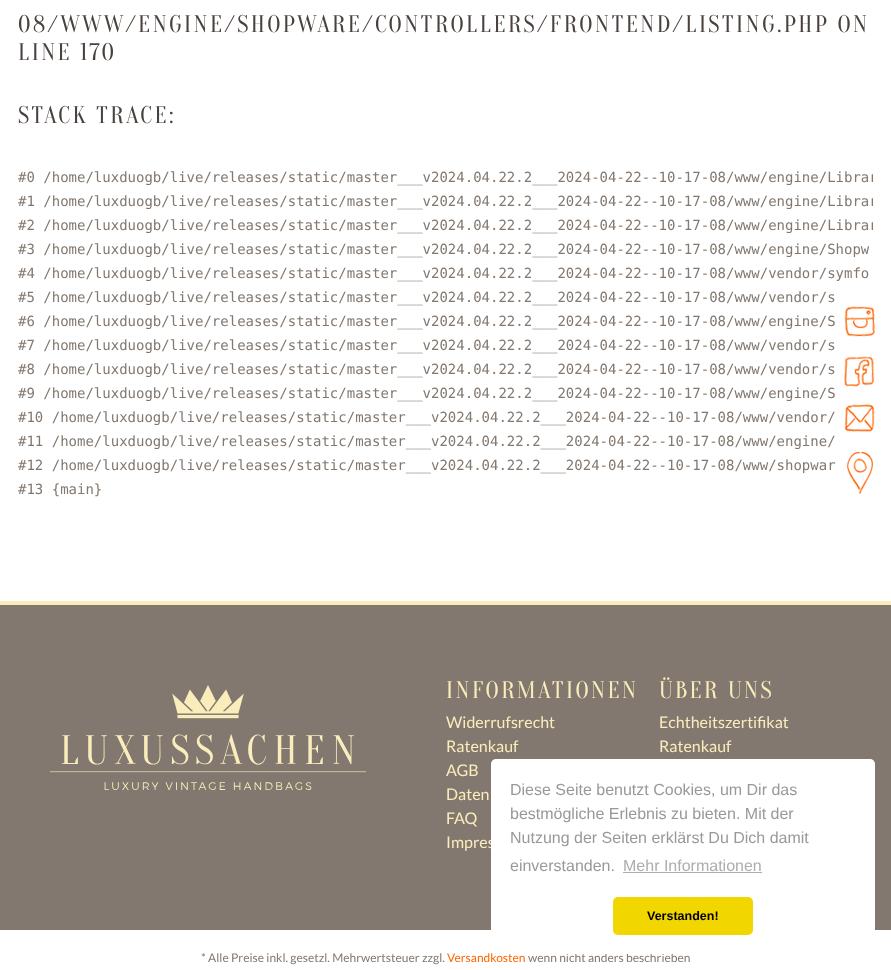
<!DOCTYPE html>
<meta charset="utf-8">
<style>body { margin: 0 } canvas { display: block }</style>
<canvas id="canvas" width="891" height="970"></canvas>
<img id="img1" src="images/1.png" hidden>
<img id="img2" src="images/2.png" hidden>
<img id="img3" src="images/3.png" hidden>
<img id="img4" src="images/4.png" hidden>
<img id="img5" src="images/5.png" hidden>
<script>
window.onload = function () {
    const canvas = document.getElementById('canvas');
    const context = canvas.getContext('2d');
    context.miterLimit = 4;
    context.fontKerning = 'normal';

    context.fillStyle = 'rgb(255, 255, 255)';
    context.fillRect(0, 0, 891, 970);
    context.fillStyle = 'rgb(250, 237, 188)';
    context.fillRect(0, 601, 891, 4);
    context.fillStyle = 'rgb(131, 120, 111)';
    context.fillRect(0, 605, 891, 325);
    context.drawImage(document.getElementById('img1'), 50, 685, 316, 105);
    context.drawImage(document.getElementById('img2'), 844, 306, 32, 31);
    context.drawImage(document.getElementById('img3'), 844, 356, 31, 31);
    context.drawImage(document.getElementById('img4'), 844, 404, 31, 28);
    context.drawImage(document.getElementById('img5'), 847, 452, 26, 42);
    context.letterSpacing = '2.4px';
    context.font = '24px Oranienbaum';
    context.fillStyle = 'rgb(73, 65, 62)';
    context.fillText('08/WWW/ENGINE/SHOPWARE/CONTROLLERS/FRONTEND/LISTING.PHP ON', 18, 32);
    context.fillText('LINE 170', 18, 60);
    context.fillText('STACK TRACE:', 18, 123);
    context.save();
    context.beginPath();
    context.rect(18, 165, 855, 336);
    context.clip();
    context.letterSpacing = '0px';
    context.font = '14px DejaVu Sans Mono';
    context.fillStyle = 'rgb(131, 120, 111)';
    context.fillText('#0 /home/luxduogb/live/releases/static/master___v2024.04.22.2___2024-04-22--10-17-08/www/engine/Librar', 18, 182);
    context.fillText('#1 /home/luxduogb/live/releases/static/master___v2024.04.22.2___2024-04-22--10-17-08/www/engine/Librar', 18, 206);
    context.fillText('#2 /home/luxduogb/live/releases/static/master___v2024.04.22.2___2024-04-22--10-17-08/www/engine/Librar', 18, 230);
    context.restore();
    context.letterSpacing = '0px';
    context.font = '14px DejaVu Sans Mono';
    context.fillStyle = 'rgb(131, 120, 111)';
    context.fillText('#3 /home/luxduogb/live/releases/static/master___v2024.04.22.2___2024-04-22--10-17-08/www/engine/Shopw', 18, 254);
    context.fillText('#4 /home/luxduogb/live/releases/static/master___v2024.04.22.2___2024-04-22--10-17-08/www/vendor/symfo', 18, 278);
    context.fillText('#5 /home/luxduogb/live/releases/static/master___v2024.04.22.2___2024-04-22--10-17-08/www/vendor/s', 18, 302);
    context.fillText('#6 /home/luxduogb/live/releases/static/master___v2024.04.22.2___2024-04-22--10-17-08/www/engine/S', 18, 326);
    context.fillText('#7 /home/luxduogb/live/releases/static/master___v2024.04.22.2___2024-04-22--10-17-08/www/vendor/s', 18, 350);
    context.fillText('#8 /home/luxduogb/live/releases/static/master___v2024.04.22.2___2024-04-22--10-17-08/www/vendor/s', 18, 374);
    context.fillText('#9 /home/luxduogb/live/releases/static/master___v2024.04.22.2___2024-04-22--10-17-08/www/engine/S', 18, 398);
    context.fillText('#10 /home/luxduogb/live/releases/static/master___v2024.04.22.2___2024-04-22--10-17-08/www/vendor/', 18, 422);
    context.fillText('#11 /home/luxduogb/live/releases/static/master___v2024.04.22.2___2024-04-22--10-17-08/www/engine/', 18, 446);
    context.fillText('#12 /home/luxduogb/live/releases/static/master___v2024.04.22.2___2024-04-22--10-17-08/www/shopwar', 18, 470);
    context.fillText('#13 {main}', 18, 494);
    context.letterSpacing = '2.4px';
    context.font = '24px Oranienbaum';
    context.fillStyle = 'rgb(250, 237, 188)';
    context.fillText('INFORMATIONEN', 446, 698);
    context.letterSpacing = '0px';
    context.font = '16px Lato';
    context.fillText('Widerrufsrecht', 446, 728);
    context.fillText('Ratenkauf', 446, 752);
    context.fillText('AGB', 446, 776);
    context.fillText('Daten', 446, 800);
    context.fillText('FAQ', 446, 824);
    context.fillText('Impres', 446, 848);
    context.letterSpacing = '2.4px';
    context.font = '24px Oranienbaum';
    context.fillText('ÜBER UNS', 659, 698);
    context.letterSpacing = '0px';
    context.font = '16px Lato';
    context.fillText('Echtheitszertifikat', 659, 728);
    context.fillText('Ratenkauf', 659, 752);
    context.font = '12px Lato';
    context.fillStyle = 'rgb(131, 120, 111)';
    context.fillText('* Alle Preise inkl. gesetzl. Mehrwertsteuer zzgl.', 201, 962);
    context.fillStyle = 'rgb(255, 102, 0)';
    context.fillText('Versandkosten', 447, 962);
    context.fillStyle = 'rgb(131, 120, 111)';
    context.fillText('wenn nicht anders beschrieben', 528, 962);
    context.fillStyle = 'rgb(255, 255, 255)';
    context.beginPath();
    context.roundRect(491, 759, 384, 195, 5);
    context.fill();
    context.font = '16px Liberation Sans';
    context.fillStyle = 'rgb(153, 153, 153)';
    context.fillText('Diese Seite benutzt Cookies, um Dir das', 510, 795);
    context.fillText('bestmögliche Erlebnis zu bieten. Mit der', 510, 819);
    context.fillText('Nutzung der Seiten erklärst Du Dich damit', 510, 843);
    context.fillText('einverstanden.', 510, 871);
    context.fillStyle = 'rgb(173, 173, 173)';
    context.fillText('Mehr Informationen', 623, 871);
    context.fillRect(623, 872, 139, 1);
    context.fillStyle = 'rgb(241, 214, 0)';
    context.beginPath();
    context.roundRect(613, 897, 140, 38, 5);
    context.fill();
    context.font = 'bold 12.5px Liberation Sans';
    context.fillStyle = 'rgb(0, 0, 0)';
    context.fillText('Verstanden!', 647, 920);
};
</script>
